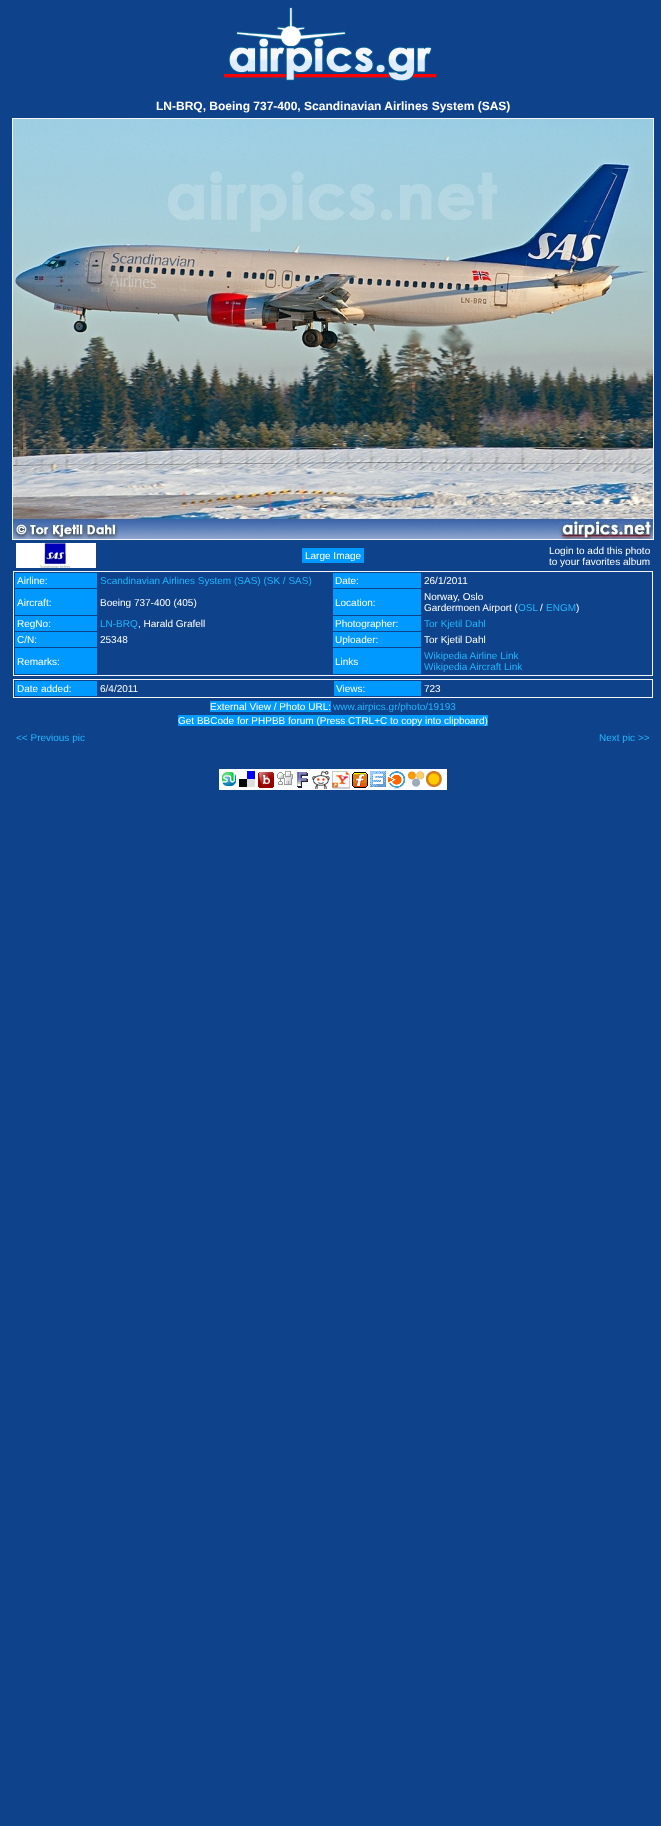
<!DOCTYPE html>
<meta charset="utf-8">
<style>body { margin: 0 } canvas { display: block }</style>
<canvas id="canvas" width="661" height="1826"></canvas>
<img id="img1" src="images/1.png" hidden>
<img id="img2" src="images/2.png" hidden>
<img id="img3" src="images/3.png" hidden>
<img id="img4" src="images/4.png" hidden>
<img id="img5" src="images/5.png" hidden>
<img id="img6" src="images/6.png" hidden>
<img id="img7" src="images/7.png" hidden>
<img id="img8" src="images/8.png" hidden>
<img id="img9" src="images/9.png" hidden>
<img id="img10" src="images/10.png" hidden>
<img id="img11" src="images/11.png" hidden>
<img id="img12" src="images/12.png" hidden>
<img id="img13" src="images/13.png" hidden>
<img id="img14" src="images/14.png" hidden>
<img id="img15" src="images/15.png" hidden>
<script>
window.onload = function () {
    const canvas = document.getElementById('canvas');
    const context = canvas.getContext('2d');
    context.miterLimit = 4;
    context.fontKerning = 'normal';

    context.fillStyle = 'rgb(14, 66, 139)';
    context.fillRect(0, 0, 661, 1826);
    context.drawImage(document.getElementById('img1'), 224, 7, 213, 75);
    context.strokeStyle = 'rgb(245, 245, 245)';
    context.strokeRect(12.5, 118.5, 641, 421);
    context.drawImage(document.getElementById('img2'), 13, 119, 640, 420);
    context.drawImage(document.getElementById('img3'), 16, 543, 80, 25);
    context.fillStyle = 'rgb(0, 153, 255)';
    context.fillRect(302, 548, 62, 15);
    context.strokeRect(13.5, 571.5, 639, 104);
    context.fillRect(15, 573, 82, 15);
    context.fillRect(333, 573, 88, 15);
    context.fillRect(15, 589, 82, 26);
    context.fillRect(333, 589, 88, 26);
    context.fillRect(15, 616, 82, 15);
    context.fillRect(333, 616, 88, 15);
    context.fillRect(15, 632, 82, 15);
    context.fillRect(333, 632, 88, 15);
    context.fillRect(15, 648, 82, 26);
    context.fillRect(333, 648, 88, 26);
    context.strokeRect(13.5, 679.5, 639, 18);
    context.fillRect(15, 681, 82, 15);
    context.fillRect(334, 681, 87, 15);
    context.fillRect(210, 701, 121, 11);
    context.fillRect(178, 715, 310, 11);
    context.fillStyle = 'rgb(255, 255, 255)';
    context.fillRect(219, 769, 228, 21);
    context.drawImage(document.getElementById('img4'), 222, 772, 14, 14);
    context.drawImage(document.getElementById('img5'), 239, 771, 16, 16);
    context.drawImage(document.getElementById('img6'), 258, 772, 16, 16);
    context.drawImage(document.getElementById('img7'), 277, 771, 16, 14);
    context.drawImage(document.getElementById('img8'), 297, 772, 11, 16);
    context.drawImage(document.getElementById('img9'), 312, 771, 18, 18);
    context.drawImage(document.getElementById('img10'), 332, 771, 18, 18);
    context.drawImage(document.getElementById('img11'), 352, 772, 16, 16);
    context.drawImage(document.getElementById('img12'), 370, 771, 16, 16);
    context.drawImage(document.getElementById('img13'), 388, 771, 17, 18);
    context.drawImage(document.getElementById('img14'), 408, 771, 16, 16);
    context.drawImage(document.getElementById('img15'), 426, 771, 16, 16);
    context.font = 'bold 12px Liberation Sans';
    context.fillText('LN-BRQ, Boeing 737-400, Scandinavian Airlines System (SAS)', 156, 110);
    context.font = '10px Liberation Sans';
    context.fillText('Large Image', 305, 559);
    context.fillText('Login to add this photo', 549, 554);
    context.fillText('to your favorites album', 549, 565);
    context.fillText('Airline:', 17, 584);
    context.fillStyle = 'rgb(31, 183, 255)';
    context.fillText('Scandinavian Airlines System (SAS) (SK / SAS)', 100, 584);
    context.fillStyle = 'rgb(255, 255, 255)';
    context.fillText('Date:', 335, 584);
    context.fillText('26/1/2011', 424, 584);
    context.fillText('Aircraft:', 17, 606);
    context.fillText('Boeing 737-400 (405)', 100, 606);
    context.fillText('Location:', 335, 606);
    context.fillText('Norway, Oslo', 424, 600);
    context.fillText('Gardermoen Airport (', 424, 611);
    context.fillStyle = 'rgb(31, 183, 255)';
    context.fillText('OSL', 518, 611);
    context.fillStyle = 'rgb(255, 255, 255)';
    context.fillText('/', 540, 611);
    context.fillStyle = 'rgb(31, 183, 255)';
    context.fillText('ENGM', 546, 611);
    context.fillStyle = 'rgb(255, 255, 255)';
    context.fillText(')', 576, 611);
    context.fillText('RegNo:', 17, 627);
    context.fillStyle = 'rgb(31, 183, 255)';
    context.fillText('LN-BRQ', 100, 627);
    context.fillStyle = 'rgb(255, 255, 255)';
    context.fillText(', Harald Grafell', 138, 627);
    context.fillText('Photographer:', 335, 627);
    context.fillStyle = 'rgb(31, 183, 255)';
    context.fillText('Tor Kjetil Dahl', 424, 627);
    context.fillStyle = 'rgb(255, 255, 255)';
    context.fillText('C/N:', 17, 643);
    context.fillText('25348', 100, 643);
    context.fillText('Uploader:', 335, 643);
    context.fillText('Tor Kjetil Dahl', 424, 643);
    context.fillText('Remarks:', 17, 665);
    context.fillText('Links', 335, 665);
    context.fillStyle = 'rgb(31, 183, 255)';
    context.fillText('Wikipedia Airline Link', 424, 659);
    context.fillText('Wikipedia Aircraft Link', 424, 670);
    context.fillStyle = 'rgb(255, 255, 255)';
    context.fillText('Date added:', 17, 692);
    context.fillText('6/4/2011', 100, 692);
    context.fillText('Views:', 336, 692);
    context.fillText('723', 424, 692);
    context.fillText('External View / Photo URL:', 210, 710);
    context.fillStyle = 'rgb(31, 183, 255)';
    context.fillText('www.airpics.gr/photo/19193', 333, 710);
    context.fillStyle = 'rgb(255, 255, 255)';
    context.fillText('Get BBCode for PHPBB forum (Press CTRL+C to copy into clipboard)', 178, 724);
    context.fillStyle = 'rgb(31, 183, 255)';
    context.fillText('<< Previous pic', 16, 741);
    context.fillText('Next pic >>', 599, 741);
};
</script>
